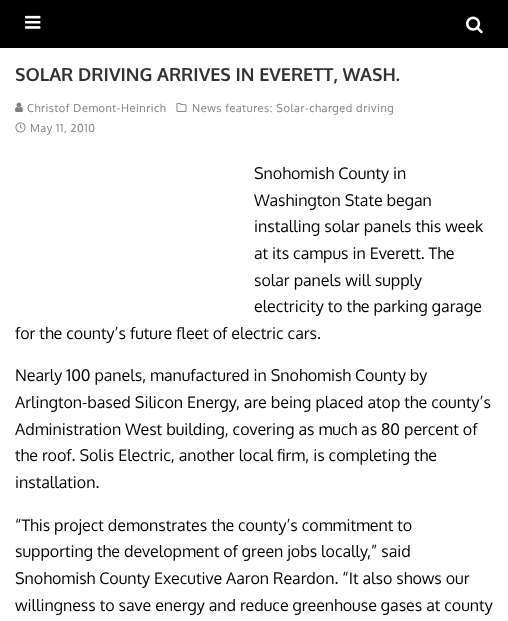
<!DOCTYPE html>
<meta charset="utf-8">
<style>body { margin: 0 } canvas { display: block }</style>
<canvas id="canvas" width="508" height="621"></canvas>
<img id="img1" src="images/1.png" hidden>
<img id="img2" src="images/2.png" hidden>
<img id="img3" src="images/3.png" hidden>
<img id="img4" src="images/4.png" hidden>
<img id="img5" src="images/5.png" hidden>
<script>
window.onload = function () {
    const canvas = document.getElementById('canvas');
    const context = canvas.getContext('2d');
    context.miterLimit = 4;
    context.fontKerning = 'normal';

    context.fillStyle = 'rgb(255, 255, 255)';
    context.fillRect(0, 0, 508, 621);
    context.fillStyle = 'rgb(0, 0, 0)';
    context.fillRect(0, 0, 508, 48);
    context.drawImage(document.getElementById('img1'), 25, 15, 16, 14);
    context.drawImage(document.getElementById('img2'), 466, 16, 17, 18);
    context.drawImage(document.getElementById('img3'), 15, 102, 8, 10);
    context.drawImage(document.getElementById('img4'), 176, 102, 11, 10);
    context.drawImage(document.getElementById('img5'), 15, 122, 11, 11);
    context.font = 'bold 18px Oxygen';
    context.fillStyle = 'rgb(51, 51, 51)';
    context.fillText('SOLAR DRIVING ARRIVES IN EVERETT, WASH.', 15, 81);
    context.letterSpacing = '0.55px';
    context.font = '11px Oxygen';
    context.fillStyle = 'rgb(128, 128, 128)';
    context.fillText('Christof Demont-Heinrich', 27, 112);
    context.fillText('News features: Solar-charged driving', 192, 112);
    context.fillText('May 11, 2010', 30, 132);
    context.letterSpacing = '0px';
    context.font = '16px Oxygen';
    context.fillStyle = 'rgb(0, 0, 0)';
    context.fillText('Snohomish County in', 254, 179);
    context.fillText('Washington State began', 254, 206);
    context.fillText('installing solar panels this week', 254, 232);
    context.fillText('at its campus in Everett. The', 254, 259);
    context.fillText('solar panels will supply', 254, 286);
    context.fillText('electricity to the parking garage', 254, 312);
    context.fillText('for the county’s future fleet of electric cars.', 15, 339);
    context.fillText('Nearly 100 panels, manufactured in Snohomish County by', 15, 381);
    context.fillText('Arlington-based Silicon Energy, are being placed atop the county’s', 15, 408);
    context.fillText('Administration West building, covering as much as 80 percent of', 15, 435);
    context.fillText('the roof. Solis Electric, another local firm, is completing the', 15, 461);
    context.fillText('installation.', 15, 488);
    context.fillText('“This project demonstrates the county’s commitment to', 15, 531);
    context.fillText('supporting the development of green jobs locally,” said', 15, 557);
    context.fillText('Snohomish County Executive Aaron Reardon. “It also shows our', 15, 584);
    context.fillText('willingness to save energy and reduce greenhouse gases at county', 15, 611);
};
</script>
